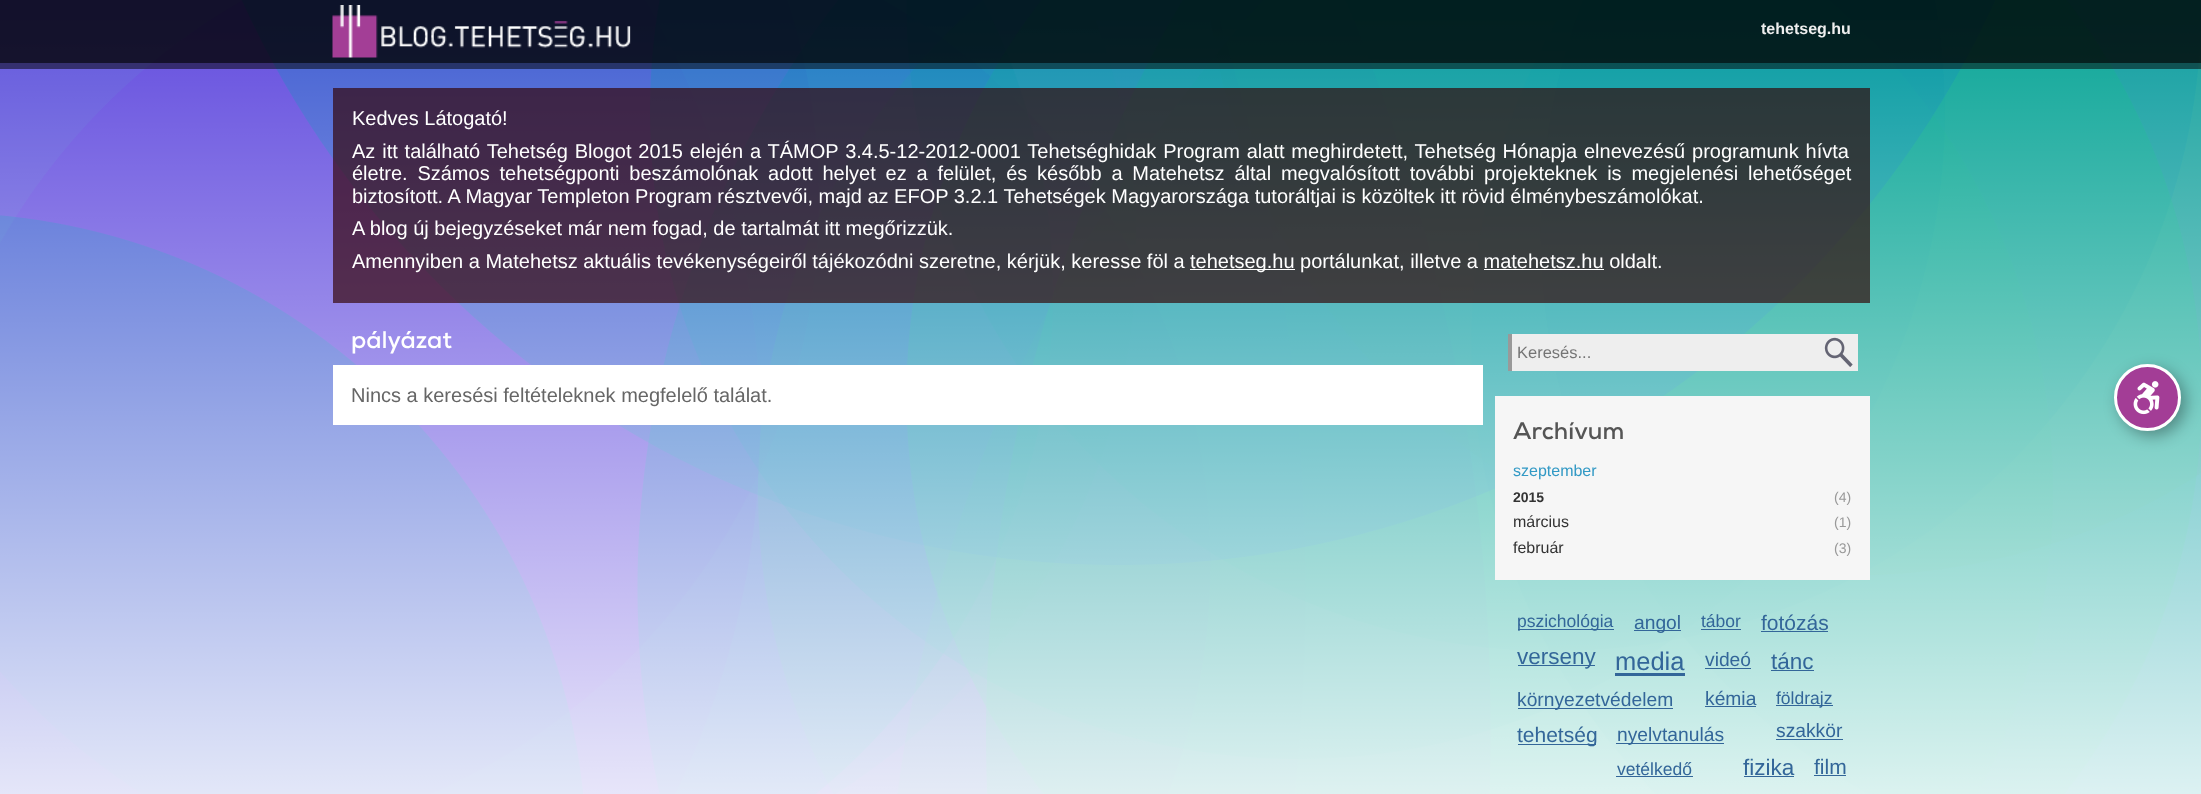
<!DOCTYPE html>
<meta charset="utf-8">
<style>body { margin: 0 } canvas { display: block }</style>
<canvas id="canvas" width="2201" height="794"></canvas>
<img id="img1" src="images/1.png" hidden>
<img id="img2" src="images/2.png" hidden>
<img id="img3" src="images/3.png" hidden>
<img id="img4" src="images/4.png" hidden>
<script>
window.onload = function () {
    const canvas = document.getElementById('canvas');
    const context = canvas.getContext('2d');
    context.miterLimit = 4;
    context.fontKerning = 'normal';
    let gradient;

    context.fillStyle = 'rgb(255, 255, 255)';
    context.fillRect(0, 0, 2201, 794);
    context.drawImage(document.getElementById('img1'), 0, 0, 2201, 794);
    gradient = context.createLinearGradient(1101, 0, 1101, 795);
    gradient.addColorStop(0, 'rgba(255, 255, 255, 0)');
    gradient.addColorStop(1, 'rgba(255, 255, 255, 0.85)');
    context.fillStyle = gradient;
    context.fillRect(0, 20, 2201, 774);
    context.fillStyle = 'rgba(0, 0, 0, 0.8)';
    context.fillRect(0, 0, 2201, 63);
    context.drawImage(document.getElementById('img2'), 332, 5, 299, 53);
    context.fillStyle = 'rgba(0, 0, 0, 0.5)';
    context.fillRect(0, 63, 2201, 6);
    context.fillStyle = 'rgba(50, 0, 0, 0.66)';
    context.fillRect(333, 88, 1537, 215);
    context.fillStyle = 'rgb(255, 255, 255)';
    context.fillRect(1190, 269, 105, 1);
    context.fillRect(1484, 269, 120, 1);
    context.fillRect(333, 365, 1150, 60);
    context.fillStyle = 'rgb(238, 238, 238)';
    context.fillRect(1512, 334, 346, 37);
    context.fillStyle = 'rgb(153, 153, 153)';
    context.fillRect(1508, 334, 4, 37);
    context.drawImage(document.getElementById('img3'), 1824, 337, 29, 30);
    context.fillStyle = 'rgb(246, 246, 246)';
    context.fillRect(1495, 396, 375, 184);
    context.fillStyle = 'rgb(51, 102, 153)';
    context.fillRect(1518, 629, 96, 1);
    context.fillRect(1634, 630, 47, 1);
    context.fillRect(1701, 629, 40, 1);
    context.fillRect(1761, 631, 67, 1);
    context.fillRect(1518, 665, 77, 1);
    context.fillRect(1615, 673, 70, 3);
    context.fillRect(1705, 668, 46, 1);
    context.fillRect(1771, 670, 43, 1);
    context.fillRect(1518, 708, 155, 1);
    context.fillRect(1705, 706, 51, 1);
    context.fillRect(1776, 705, 57, 1);
    context.fillRect(1518, 744, 78, 1);
    context.fillRect(1616, 743, 108, 1);
    context.fillRect(1776, 739, 67, 1);
    context.fillRect(1616, 776, 77, 1);
    context.fillRect(1744, 776, 50, 1);
    context.fillRect(1814, 775, 32, 1);
    context.fillStyle = 'rgba(0, 0, 0, 0.33)';
    context.filter = 'blur(7.5px)';
    context.beginPath();
    context.roundRect(2119, 369, 67, 67, 33.5);
    context.fill();
    context.filter = 'none';
    context.fillStyle = 'rgb(163, 61, 150)';
    context.beginPath();
    context.arc(2147.5, 397.5, 32, 0, 2 * Math.PI);
    context.fill();
    context.strokeStyle = 'rgb(255, 255, 255)';
    context.lineWidth = 3;
    context.stroke();
    context.drawImage(document.getElementById('img4'), 2133, 381, 27, 34);
    context.font = 'bold 16px Liberation Sans';
    context.fillStyle = 'rgb(238, 238, 238)';
    context.fillText('tehetseg.hu', 1761, 34);
    context.font = '20px Liberation Sans';
    context.fillStyle = 'rgb(255, 255, 255)';
    context.fillText('Kedves Látogató!', 352, 125);
    context.wordSpacing = '1.3px';
    context.fillText('Az itt található Tehetség Blogot 2015 elején a TÁMOP 3.4.5-12-2012-0001 Tehetséghidak Program alatt meghirdetett, Tehetség Hónapja elnevezésű programunk hívta', 352, 158);
    context.wordSpacing = '4.25px';
    context.fillText('életre. Számos tehetségponti beszámolónak adott helyet ez a felület, és később a Matehetsz által megvalósított további projekteknek is megjelenési lehetőséget', 352, 180);
    context.wordSpacing = '0px';
    context.fillText('biztosított. A Magyar Templeton Program résztvevői, majd az EFOP 3.2.1 Tehetségek Magyarországa tutoráltjai is közöltek itt rövid élménybeszámolókat.', 352, 203);
    context.fillText('A blog új bejegyzéseket már nem fogad, de tartalmát itt megőrizzük.', 352, 235);
    context.fillText('Amennyiben a Matehetsz aktuális tevékenységeiről tájékozódni szeretne, kérjük, keresse föl a', 352, 268);
    context.fillText('tehetseg.hu portálunkat, illetve a matehetsz.hu oldalt.', 1190, 268);
    context.font = 'bold 24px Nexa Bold';
    context.fillText('pályázat', 351, 348);
    context.font = '20px Liberation Sans';
    context.fillStyle = 'rgb(102, 102, 102)';
    context.fillText('Nincs a keresési feltételeknek megfelelő találat.', 351, 402);
    context.font = '16.5px Liberation Sans';
    context.fillStyle = 'rgb(117, 117, 117)';
    context.fillText('Keresés...', 1517, 358);
    context.font = 'bold 24px Nexa Bold';
    context.fillStyle = 'rgb(85, 85, 85)';
    context.fillText('Archívum', 1513, 439);
    context.font = '16px Liberation Sans';
    context.fillStyle = 'rgb(50, 153, 197)';
    context.fillText('szeptember', 1513, 476);
    context.font = 'bold 14px Liberation Sans';
    context.fillStyle = 'rgb(51, 51, 51)';
    context.fillText('2015', 1513, 502);
    context.font = '14px Liberation Sans';
    context.fillStyle = 'rgb(153, 153, 153)';
    context.fillText('(4)', 1834, 502);
    context.font = '16px Liberation Sans';
    context.fillStyle = 'rgb(51, 51, 51)';
    context.fillText('március', 1513, 527);
    context.font = '14px Liberation Sans';
    context.fillStyle = 'rgb(153, 153, 153)';
    context.fillText('(1)', 1834, 527);
    context.font = '16px Liberation Sans';
    context.fillStyle = 'rgb(51, 51, 51)';
    context.fillText('február', 1513, 553);
    context.font = '14px Liberation Sans';
    context.fillStyle = 'rgb(153, 153, 153)';
    context.fillText('(3)', 1834, 553);
    context.font = '17.5px Liberation Sans';
    context.fillStyle = 'rgb(51, 102, 153)';
    context.fillText('pszichológia', 1517, 627);
    context.font = '19.25px Liberation Sans';
    context.fillText('angol', 1634, 629);
    context.font = '17.5px Liberation Sans';
    context.fillText('tábor', 1701, 627);
    context.font = '21px Liberation Sans';
    context.fillText('fotózás', 1761, 630);
    context.font = '22.5px Liberation Sans';
    context.fillText('verseny', 1517, 664);
    context.font = '25.5px Liberation Sans';
    context.fillText('media', 1615, 670);
    context.font = '19.25px Liberation Sans';
    context.fillText('videó', 1705, 666);
    context.font = '22.5px Liberation Sans';
    context.fillText('tánc', 1771, 669);
    context.font = '19.25px Liberation Sans';
    context.fillText('környezetvédelem', 1517, 706);
    context.fillText('kémia', 1705, 705);
    context.font = '17.5px Liberation Sans';
    context.fillText('földrajz', 1776, 704);
    context.font = '21px Liberation Sans';
    context.fillText('tehetség', 1517, 742);
    context.font = '19.25px Liberation Sans';
    context.fillText('nyelvtanulás', 1617, 741);
    context.fillText('szakkör', 1776, 737);
    context.font = '17.5px Liberation Sans';
    context.fillText('vetélkedő', 1617, 775);
    context.font = '22.5px Liberation Sans';
    context.fillText('fizika', 1743, 775);
    context.font = '21px Liberation Sans';
    context.fillText('film', 1814, 774);
};
</script>
